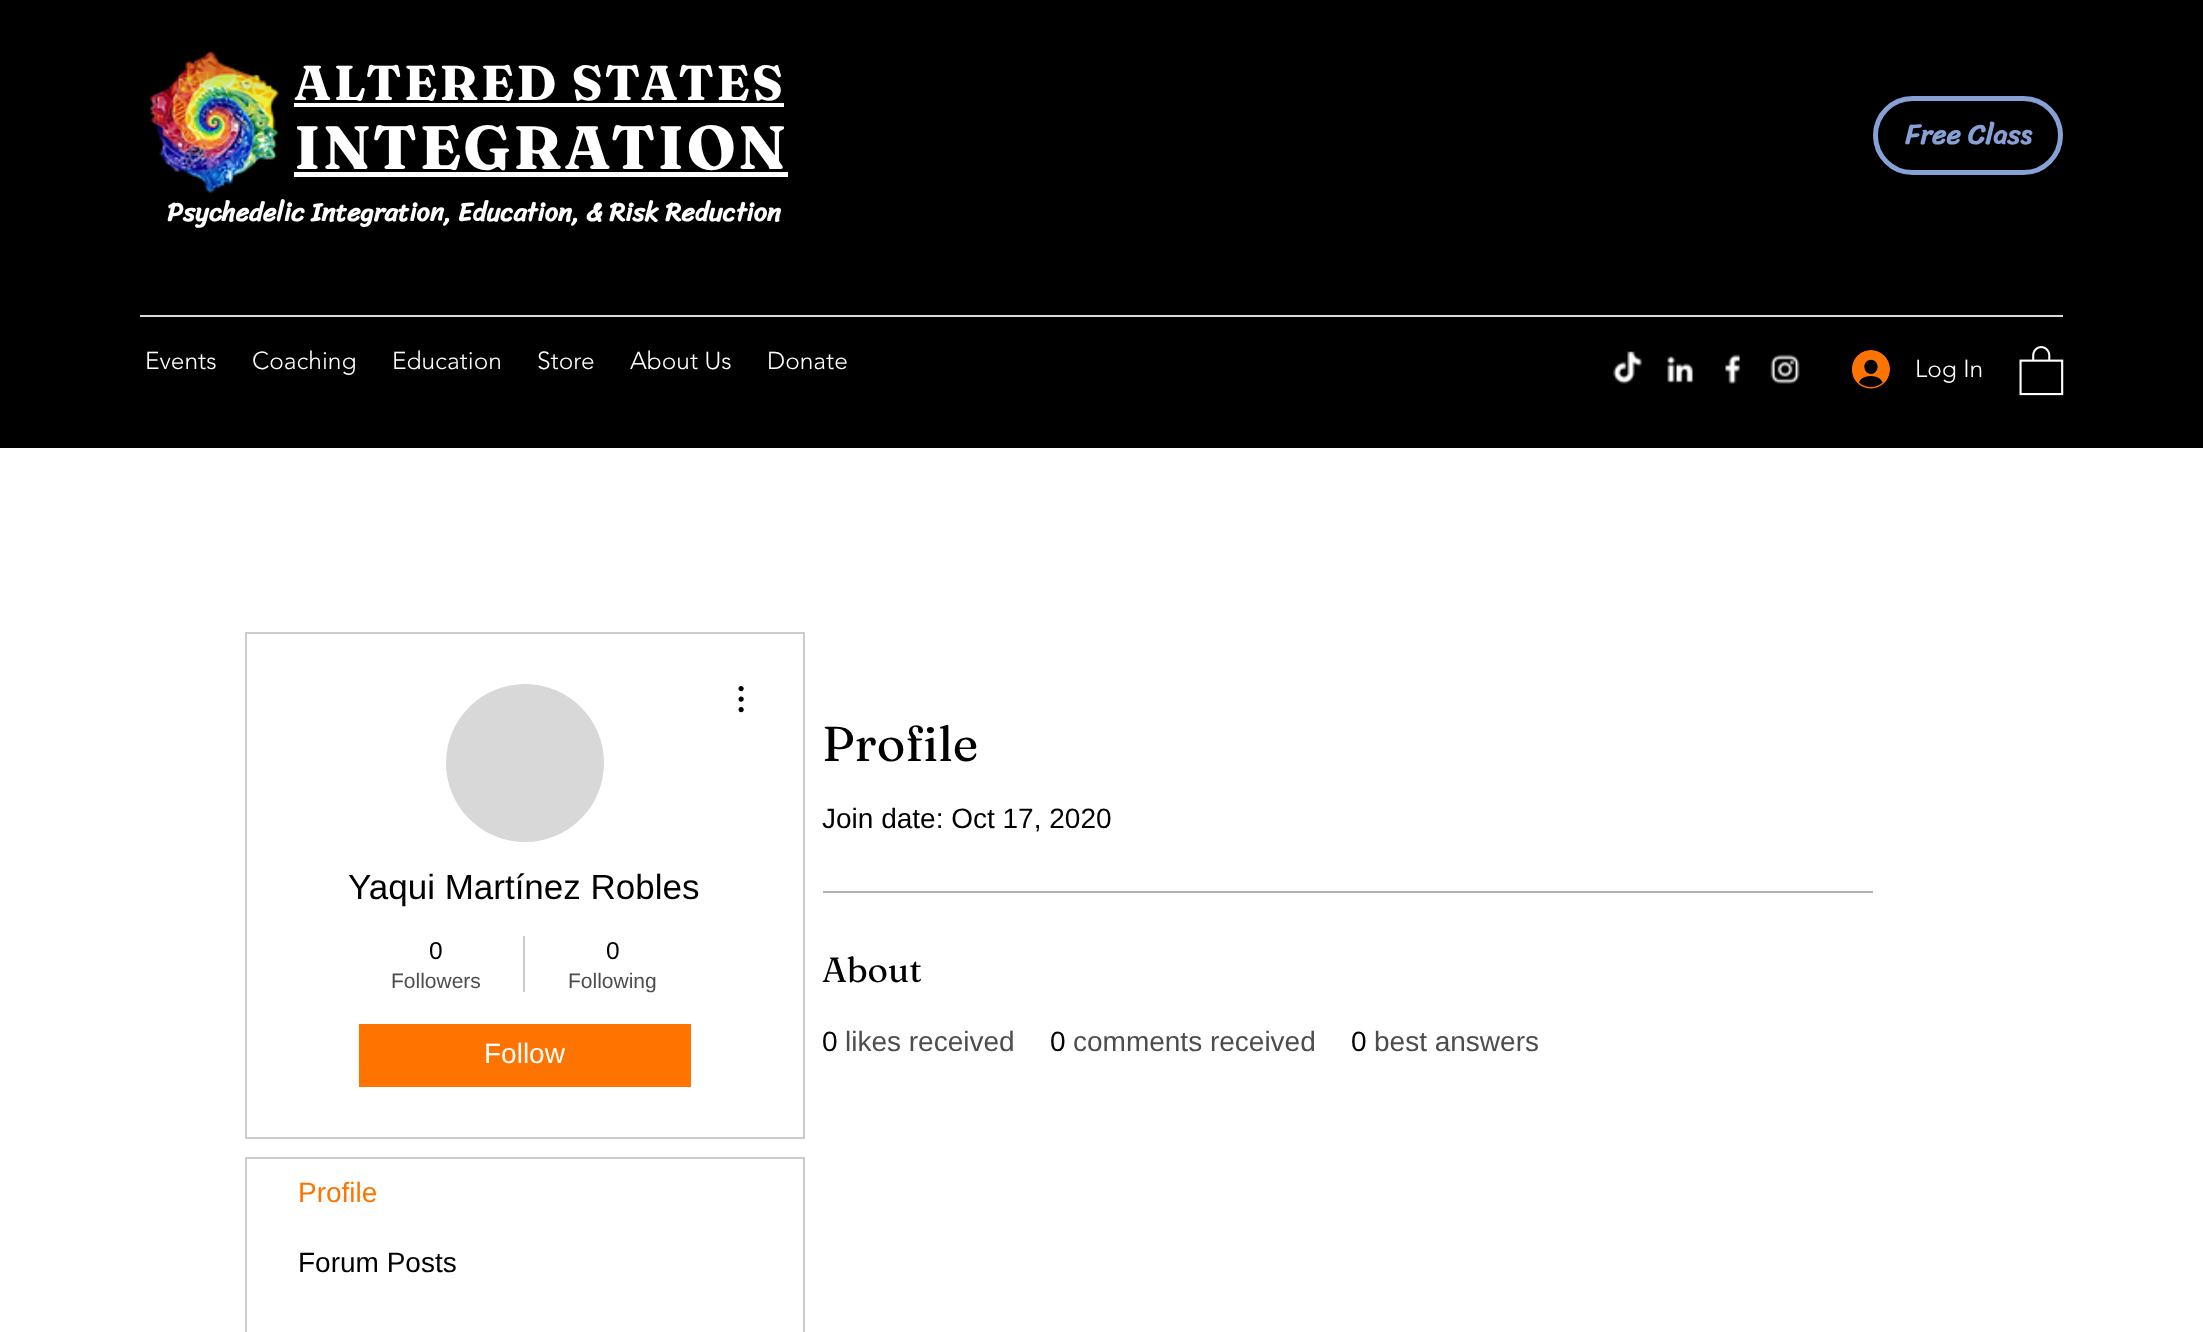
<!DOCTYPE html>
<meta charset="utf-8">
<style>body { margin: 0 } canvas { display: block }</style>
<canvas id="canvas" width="2203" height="1332"></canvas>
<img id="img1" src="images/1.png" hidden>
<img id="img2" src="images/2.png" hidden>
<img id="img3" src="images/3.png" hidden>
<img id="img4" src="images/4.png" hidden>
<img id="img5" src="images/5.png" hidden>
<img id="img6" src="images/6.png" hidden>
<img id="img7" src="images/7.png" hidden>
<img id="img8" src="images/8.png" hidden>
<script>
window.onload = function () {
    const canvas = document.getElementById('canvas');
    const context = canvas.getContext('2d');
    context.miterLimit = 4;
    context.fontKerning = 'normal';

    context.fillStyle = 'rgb(255, 255, 255)';
    context.fillRect(0, 0, 2203, 1332);
    context.fillStyle = 'rgb(0, 0, 0)';
    context.fillRect(0, 0, 2203, 448);
    context.drawImage(document.getElementById('img1'), 150, 50, 129, 143);
    context.fillStyle = 'rgb(255, 255, 255)';
    context.fillRect(294, 103, 490, 4);
    context.fillRect(294, 172, 494, 5);
    context.beginPath();
    context.roundRect(1875.5, 98.5, 185, 74, 37);
    context.strokeStyle = 'rgb(136, 161, 212)';
    context.lineWidth = 5;
    context.stroke();
    context.fillStyle = 'rgb(217, 217, 217)';
    context.fillRect(140, 315, 1923, 2);
    context.drawImage(document.getElementById('img2'), 1613, 351, 29, 33);
    context.drawImage(document.getElementById('img3'), 1667, 356, 27, 27);
    context.drawImage(document.getElementById('img4'), 1725, 354, 16, 30);
    context.drawImage(document.getElementById('img5'), 1770, 354, 30, 30);
    context.drawImage(document.getElementById('img6'), 1852, 350, 38, 39);
    context.drawImage(document.getElementById('img7'), 2019, 346, 45, 50);
    context.strokeStyle = 'rgb(204, 204, 204)';
    context.lineWidth = 2;
    context.strokeRect(246, 633, 558, 505);
    context.fillStyle = 'rgb(216, 216, 216)';
    context.beginPath();
    context.arc(525, 763, 79, 0, 2 * Math.PI);
    context.fill();
    context.drawImage(document.getElementById('img8'), 738, 686, 6, 27);
    context.fillStyle = 'rgb(204, 204, 204)';
    context.fillRect(523, 936, 2, 56);
    context.fillStyle = 'rgb(255, 116, 0)';
    context.fillRect(359, 1024, 332, 63);
    context.strokeRect(246, 1158, 558, 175);
    context.fillStyle = 'rgb(179, 179, 179)';
    context.fillRect(823, 891, 1050, 2);
    context.letterSpacing = '2.5px';
    context.font = 'bold 49px Fraunces';
    context.fillStyle = 'rgb(255, 255, 255)';
    context.fillText('ALTERED STATES', 294, 100);
    context.font = 'bold 61.25px Fraunces';
    context.fillText('INTEGRATION', 294, 169);
    context.letterSpacing = '0px';
    context.font = 'bold 26.25px Sriracha';
    context.fillText('Psychedelic Integration, Education, & Risk Reduction', 167, 221);
    context.font = 'bold 28px Sriracha';
    context.fillStyle = 'rgb(136, 161, 212)';
    context.fillText('Free Class', 1905, 144);
    context.font = '300 24.5px "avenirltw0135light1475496"';
    context.fillStyle = 'rgb(255, 255, 255)';
    context.fillText('Events', 145, 369);
    context.fillText('Coaching', 252, 369);
    context.fillText('Education', 392, 369);
    context.fillText('Store', 537, 369);
    context.fillText('About Us', 630, 369);
    context.fillText('Donate', 767, 369);
    context.fillText('Log In', 1915, 377);
    context.font = '35px Liberation Sans';
    context.fillStyle = 'rgb(0, 0, 0)';
    context.fillText('Yaqui Martínez Robles', 348, 899);
    context.font = '24.5px Liberation Sans';
    context.fillText('0', 429, 959);
    context.font = '21px Liberation Sans';
    context.fillStyle = 'rgb(77, 77, 77)';
    context.fillText('Followers', 391, 988);
    context.font = '24.5px Liberation Sans';
    context.fillStyle = 'rgb(0, 0, 0)';
    context.fillText('0', 606, 959);
    context.font = '21px Liberation Sans';
    context.fillStyle = 'rgb(77, 77, 77)';
    context.fillText('Following', 568, 988);
    context.font = '28px Liberation Sans';
    context.fillStyle = 'rgb(255, 255, 255)';
    context.fillText('Follow', 484, 1063);
    context.fillStyle = 'rgb(255, 116, 0)';
    context.fillText('Profile', 298, 1202);
    context.fillStyle = 'rgb(0, 0, 0)';
    context.fillText('Forum Posts', 298, 1272);
    context.font = '49px Fraunces';
    context.fillText('Profile', 822, 761);
    context.font = '28px Liberation Sans';
    context.fillText('Join date: Oct 17, 2020', 822, 828);
    context.font = '35px Fraunces';
    context.fillText('About', 822, 982);
    context.font = '28px Liberation Sans';
    context.fillText('0', 822, 1051);
    context.fillStyle = 'rgb(77, 77, 77)';
    context.fillText('likes received', 845, 1051);
    context.fillStyle = 'rgb(0, 0, 0)';
    context.fillText('0', 1050, 1051);
    context.fillStyle = 'rgb(77, 77, 77)';
    context.fillText('comments received', 1073, 1051);
    context.fillStyle = 'rgb(0, 0, 0)';
    context.fillText('0', 1351, 1051);
    context.fillStyle = 'rgb(77, 77, 77)';
    context.fillText('best answers', 1374, 1051);
};
</script>
